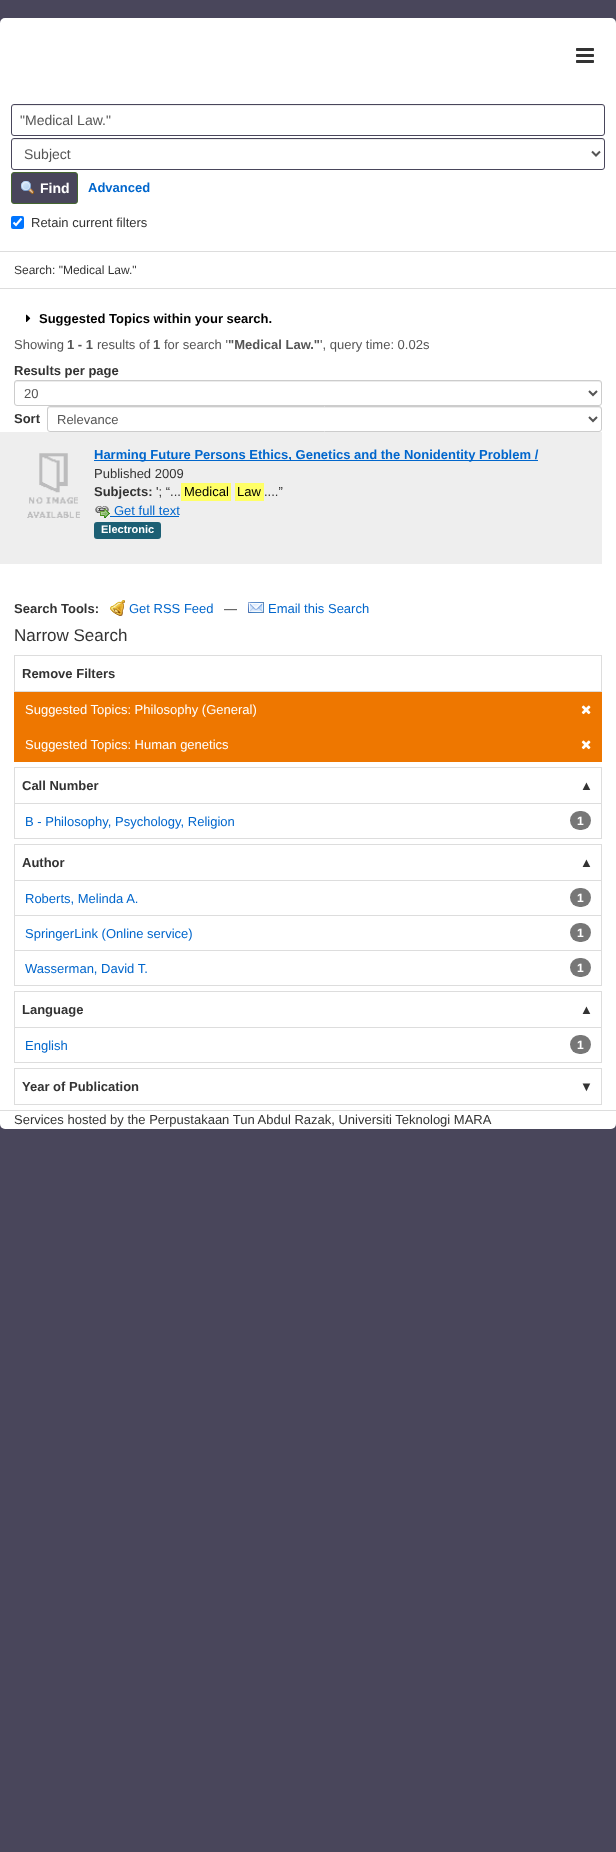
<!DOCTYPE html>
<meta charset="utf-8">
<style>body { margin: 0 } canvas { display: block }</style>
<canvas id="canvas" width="616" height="1852"></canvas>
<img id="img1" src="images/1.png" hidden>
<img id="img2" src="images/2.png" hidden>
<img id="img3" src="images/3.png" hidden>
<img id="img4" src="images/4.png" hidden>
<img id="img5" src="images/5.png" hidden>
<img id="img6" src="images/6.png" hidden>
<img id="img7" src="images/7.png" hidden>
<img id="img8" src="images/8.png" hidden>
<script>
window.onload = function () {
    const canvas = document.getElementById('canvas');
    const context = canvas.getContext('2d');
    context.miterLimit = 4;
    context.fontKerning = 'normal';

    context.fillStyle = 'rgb(73, 70, 91)';
    context.fillRect(0, 0, 616, 1852);
    context.fillStyle = 'rgb(255, 255, 255)';
    context.beginPath();
    context.roundRect(0, 18, 616, 77, [5, 5, 0, 0]);
    context.fill();
    context.drawImage(document.getElementById('img1'), 576, 48, 18, 15);
    context.fillRect(0, 95, 616, 156);
    context.fillStyle = 'rgb(236, 236, 236)';
    context.beginPath();
    context.moveTo(14, 106);
    context.lineTo(602, 106);
    context.bezierCurveTo(603, 106, 604, 107, 604, 108);
    context.bezierCurveTo(604, 107, 604, 105, 602, 105);
    context.lineTo(14, 105);
    context.lineTo(12, 106);
    context.lineTo(12, 108);
    context.bezierCurveTo(12, 107, 13, 106, 14, 106);
    context.closePath();
    context.fill();
    context.beginPath();
    context.roundRect(11.5, 104.5, 593, 31, 2.5);
    context.strokeStyle = 'rgb(73, 70, 91)';
    context.stroke();
    context.beginPath();
    context.moveTo(14, 140);
    context.lineTo(602, 140);
    context.bezierCurveTo(603, 140, 604, 141, 604, 142);
    context.bezierCurveTo(604, 141, 604, 139, 602, 139);
    context.lineTo(14, 139);
    context.lineTo(12, 140);
    context.lineTo(12, 142);
    context.bezierCurveTo(12, 141, 13, 140, 14, 140);
    context.closePath();
    context.fill();
    context.beginPath();
    context.roundRect(11.5, 138.5, 593, 31, 2.5);
    context.stroke();
    context.beginPath();
    context.moveTo(592, 151.5);
    context.lineTo(596, 155.5);
    context.lineTo(600, 151.5);
    context.strokeStyle = 'rgb(85, 85, 85)';
    context.lineWidth = 2;
    context.stroke();
    context.fillStyle = 'rgb(73, 70, 91)';
    context.beginPath();
    context.roundRect(11.5, 172.5, 66, 31, 2.5);
    context.fill();
    context.strokeStyle = 'rgb(69, 103, 48)';
    context.lineWidth = 1;
    context.stroke();
    context.drawImage(document.getElementById('img2'), 21, 181, 13, 14);
    context.fillStyle = 'rgb(0, 117, 255)';
    context.beginPath();
    context.roundRect(11, 216, 13, 13, 2);
    context.fill();
    context.beginPath();
    context.moveTo(13.5, 222.5);
    context.lineTo(16, 225);
    context.lineTo(21.5, 218.5);
    context.strokeStyle = 'rgb(255, 255, 255)';
    context.lineWidth = 2.1;
    context.stroke();
    context.fillStyle = 'rgb(255, 255, 255)';
    context.fillRect(0, 252, 616, 36);
    context.fillStyle = 'rgb(221, 221, 221)';
    context.fillRect(0, 251, 616, 1);
    context.fillRect(0, 288, 616, 1);
    context.fillStyle = 'rgb(255, 255, 255)';
    context.fillRect(0, 289, 616, 821);
    context.drawImage(document.getElementById('img3'), 26, 314, 5, 8);
    context.fillStyle = 'rgb(236, 236, 236)';
    context.beginPath();
    context.moveTo(17, 382);
    context.lineTo(599, 382);
    context.bezierCurveTo(600, 382, 601, 383, 601, 384);
    context.bezierCurveTo(601, 383, 601, 381, 599, 381);
    context.lineTo(17, 381);
    context.lineTo(15, 382);
    context.lineTo(15, 384);
    context.bezierCurveTo(15, 383, 16, 382, 17, 382);
    context.closePath();
    context.fill();
    context.beginPath();
    context.roundRect(14.5, 380.5, 587, 25, 2.5);
    context.strokeStyle = 'rgb(204, 204, 204)';
    context.lineWidth = 1;
    context.stroke();
    context.beginPath();
    context.moveTo(589, 391);
    context.lineTo(593, 395);
    context.lineTo(597, 391);
    context.strokeStyle = 'rgb(85, 85, 85)';
    context.lineWidth = 2;
    context.stroke();
    context.beginPath();
    context.moveTo(50, 408);
    context.lineTo(599, 408);
    context.bezierCurveTo(600, 408, 601, 409, 601, 410);
    context.bezierCurveTo(601, 409, 601, 407, 599, 407);
    context.lineTo(50, 407);
    context.lineTo(48, 408);
    context.lineTo(48, 410);
    context.bezierCurveTo(48, 409, 49, 408, 50, 408);
    context.closePath();
    context.fill();
    context.beginPath();
    context.roundRect(47.5, 406.5, 554, 25, 2.5);
    context.strokeStyle = 'rgb(204, 204, 204)';
    context.lineWidth = 1;
    context.stroke();
    context.beginPath();
    context.moveTo(589, 417);
    context.lineTo(593, 421);
    context.lineTo(597, 417);
    context.strokeStyle = 'rgb(85, 85, 85)';
    context.lineWidth = 2;
    context.stroke();
    context.fillStyle = 'rgb(238, 238, 238)';
    context.fillRect(0, 432, 602, 132);
    context.drawImage(document.getElementById('img4'), 27, 453, 53, 65);
    context.fillStyle = 'rgb(0, 102, 204)';
    context.fillRect(94, 460, 444, 1);
    context.fillStyle = 'rgb(255, 255, 102)';
    context.fillRect(181, 483, 50, 18);
    context.fillRect(235, 483, 29, 18);
    context.drawImage(document.getElementById('img5'), 95, 506, 15, 12);
    context.fillStyle = 'rgb(0, 102, 204)';
    context.fillRect(110, 516, 69, 1);
    context.fillStyle = 'rgb(28, 95, 116)';
    context.beginPath();
    context.roundRect(94, 522, 67, 17, 3);
    context.fill();
    context.drawImage(document.getElementById('img6'), 110, 600, 15, 16);
    context.drawImage(document.getElementById('img7'), 248, 602, 16, 11);
    context.strokeStyle = 'rgb(221, 221, 221)';
    context.lineWidth = 1;
    context.strokeRect(14.5, 655.5, 587, 36);
    context.fillStyle = 'rgb(238, 119, 0)';
    context.fillRect(14, 692, 588, 70);
    context.drawImage(document.getElementById('img8'), 581, 705, 10, 10);
    context.drawImage(document.getElementById('img8'), 581, 740, 10, 10);
    context.strokeRect(14.5, 767.5, 587, 36);
    context.fillStyle = 'rgb(221, 221, 221)';
    context.fillRect(601, 804, 1, 35);
    context.fillRect(14, 804, 1, 35);
    context.fillRect(15, 838, 586, 1);
    context.fillStyle = 'rgb(119, 119, 119)';
    context.beginPath();
    context.roundRect(570, 811, 21, 19, 9.5);
    context.fill();
    context.strokeRect(14.5, 844.5, 587, 36);
    context.fillStyle = 'rgb(221, 221, 221)';
    context.fillRect(601, 881, 1, 105);
    context.fillRect(14, 881, 1, 105);
    context.fillRect(15, 915, 586, 1);
    context.fillStyle = 'rgb(119, 119, 119)';
    context.beginPath();
    context.roundRect(570, 888, 21, 19, 9.5);
    context.fill();
    context.fillStyle = 'rgb(221, 221, 221)';
    context.fillRect(15, 950, 586, 1);
    context.fillStyle = 'rgb(119, 119, 119)';
    context.beginPath();
    context.roundRect(570, 923, 21, 19, 9.5);
    context.fill();
    context.fillStyle = 'rgb(221, 221, 221)';
    context.fillRect(15, 985, 586, 1);
    context.fillStyle = 'rgb(119, 119, 119)';
    context.beginPath();
    context.roundRect(570, 958, 21, 19, 9.5);
    context.fill();
    context.strokeRect(14.5, 991.5, 587, 36);
    context.fillStyle = 'rgb(221, 221, 221)';
    context.fillRect(601, 1028, 1, 35);
    context.fillRect(14, 1028, 1, 35);
    context.fillRect(15, 1062, 586, 1);
    context.fillStyle = 'rgb(119, 119, 119)';
    context.beginPath();
    context.roundRect(570, 1035, 21, 19, 9.5);
    context.fill();
    context.strokeRect(14.5, 1068.5, 587, 36);
    context.fillStyle = 'rgb(255, 255, 255)';
    context.beginPath();
    context.roundRect(0, 1110, 616, 19, [0, 0, 5, 5]);
    context.fill();
    context.fillStyle = 'rgb(221, 221, 221)';
    context.fillRect(0, 1110, 616, 1);
    context.font = '14px Liberation Sans';
    context.fillStyle = 'rgb(85, 85, 85)';
    context.fillText('"Medical Law."', 20, 125);
    context.fillText('Subject', 24, 159);
    context.font = 'bold 14px Liberation Sans';
    context.fillStyle = 'rgb(255, 255, 255)';
    context.fillText('Find', 40, 193);
    context.font = 'bold 13px Liberation Sans';
    context.fillStyle = 'rgb(0, 102, 204)';
    context.fillText('Advanced', 88, 192);
    context.font = '13px Liberation Sans';
    context.fillStyle = 'rgb(51, 51, 51)';
    context.fillText('Retain current filters', 31, 227);
    context.font = '12px Liberation Sans';
    context.fillText('Search: "Medical Law."', 14, 274);
    context.font = 'bold 13px Liberation Sans';
    context.fillStyle = 'rgb(0, 0, 0)';
    context.fillText('Suggested Topics within your search.', 39, 323);
    context.font = '13px Liberation Sans';
    context.fillStyle = 'rgb(85, 85, 85)';
    context.fillText('Showing', 14, 349);
    context.font = 'bold 13px Liberation Sans';
    context.fillText('1 - 1', 67, 349);
    context.font = '13px Liberation Sans';
    context.fillText('results of', 97, 349);
    context.font = 'bold 13px Liberation Sans';
    context.fillText('1', 153, 349);
    context.font = '13px Liberation Sans';
    context.fillText('for search \'', 164, 349);
    context.font = 'bold 13px Liberation Sans';
    context.fillText('"Medical Law."', 228, 349);
    context.font = '13px Liberation Sans';
    context.fillText('\', query time: 0.02s', 320, 349);
    context.font = 'bold 13px Liberation Sans';
    context.fillStyle = 'rgb(51, 51, 51)';
    context.fillText('Results per page', 14, 375);
    context.font = '13px Liberation Sans';
    context.fillStyle = 'rgb(85, 85, 85)';
    context.fillText('20', 24, 398);
    context.font = 'bold 13px Liberation Sans';
    context.fillStyle = 'rgb(51, 51, 51)';
    context.fillText('Sort', 14, 423);
    context.font = '13px Liberation Sans';
    context.fillStyle = 'rgb(85, 85, 85)';
    context.fillText('Relevance', 57, 424);
    context.font = 'bold 13px Liberation Sans';
    context.fillStyle = 'rgb(0, 102, 204)';
    context.fillText('Harming Future Persons Ethics, Genetics and the Nonidentity Problem /', 94, 459);
    context.font = '13px Liberation Sans';
    context.fillStyle = 'rgb(51, 51, 51)';
    context.fillText('Published 2009', 94, 478);
    context.font = 'bold 13px Liberation Sans';
    context.fillText('Subjects:', 94, 496);
    context.font = '13px Liberation Sans';
    context.fillText('\'; “...', 156, 496);
    context.fillStyle = 'rgb(0, 0, 0)';
    context.fillText('Medical', 184, 496);
    context.fillText('Law', 237, 496);
    context.fillStyle = 'rgb(51, 51, 51)';
    context.fillText('....”', 264, 496);
    context.fillStyle = 'rgb(0, 102, 204)';
    context.fillText('Get full text', 114, 515);
    context.font = 'bold 11px Liberation Sans';
    context.fillStyle = 'rgb(255, 255, 255)';
    context.fillText('Electronic', 101, 533);
    context.font = 'bold 13px Liberation Sans';
    context.fillStyle = 'rgb(51, 51, 51)';
    context.fillText('Search Tools:', 14, 613);
    context.font = '13px Liberation Sans';
    context.fillStyle = 'rgb(0, 102, 204)';
    context.fillText('Get RSS Feed', 129, 613);
    context.fillStyle = 'rgb(51, 51, 51)';
    context.fillText('—', 224, 613);
    context.fillStyle = 'rgb(0, 102, 204)';
    context.fillText('Email this Search', 268, 613);
    context.font = '17px Liberation Sans';
    context.fillStyle = 'rgb(51, 51, 51)';
    context.fillText('Narrow Search', 14, 641);
    context.font = 'bold 13px Liberation Sans';
    context.fillText('Remove Filters', 22, 678);
    context.font = '13px Liberation Sans';
    context.fillStyle = 'rgb(255, 255, 255)';
    context.fillText('Suggested Topics: Philosophy (General)', 25, 714);
    context.fillText('Suggested Topics: Human genetics', 25, 749);
    context.font = 'bold 13px Liberation Sans';
    context.fillStyle = 'rgb(51, 51, 51)';
    context.fillText('Call Number', 22, 790);
    context.fillText('▲', 580, 790);
    context.font = '13px Liberation Sans';
    context.fillStyle = 'rgb(0, 102, 204)';
    context.fillText('B - Philosophy, Psychology, Religion', 25, 826);
    context.font = 'bold 12px Liberation Sans';
    context.fillStyle = 'rgb(255, 255, 255)';
    context.fillText('1', 577, 825);
    context.font = 'bold 13px Liberation Sans';
    context.fillStyle = 'rgb(51, 51, 51)';
    context.fillText('Author', 22, 867);
    context.fillText('▲', 580, 867);
    context.font = '13px Liberation Sans';
    context.fillStyle = 'rgb(0, 102, 204)';
    context.fillText('Roberts, Melinda A.', 25, 903);
    context.font = 'bold 12px Liberation Sans';
    context.fillStyle = 'rgb(255, 255, 255)';
    context.fillText('1', 577, 902);
    context.font = '13px Liberation Sans';
    context.fillStyle = 'rgb(0, 102, 204)';
    context.fillText('SpringerLink (Online service)', 25, 938);
    context.font = 'bold 12px Liberation Sans';
    context.fillStyle = 'rgb(255, 255, 255)';
    context.fillText('1', 577, 937);
    context.font = '13px Liberation Sans';
    context.fillStyle = 'rgb(0, 102, 204)';
    context.fillText('Wasserman, David T.', 25, 973);
    context.font = 'bold 12px Liberation Sans';
    context.fillStyle = 'rgb(255, 255, 255)';
    context.fillText('1', 577, 972);
    context.font = 'bold 13px Liberation Sans';
    context.fillStyle = 'rgb(51, 51, 51)';
    context.fillText('Language', 22, 1014);
    context.fillText('▲', 580, 1014);
    context.font = '13px Liberation Sans';
    context.fillStyle = 'rgb(0, 102, 204)';
    context.fillText('English', 25, 1050);
    context.font = 'bold 12px Liberation Sans';
    context.fillStyle = 'rgb(255, 255, 255)';
    context.fillText('1', 577, 1049);
    context.font = 'bold 13px Liberation Sans';
    context.fillStyle = 'rgb(51, 51, 51)';
    context.fillText('Year of Publication', 22, 1091);
    context.fillText('▼', 580, 1091);
    context.font = '13px Liberation Sans';
    context.fillText('Services hosted by the Perpustakaan Tun Abdul Razak, Universiti Teknologi MARA', 14, 1124);
};
</script>
